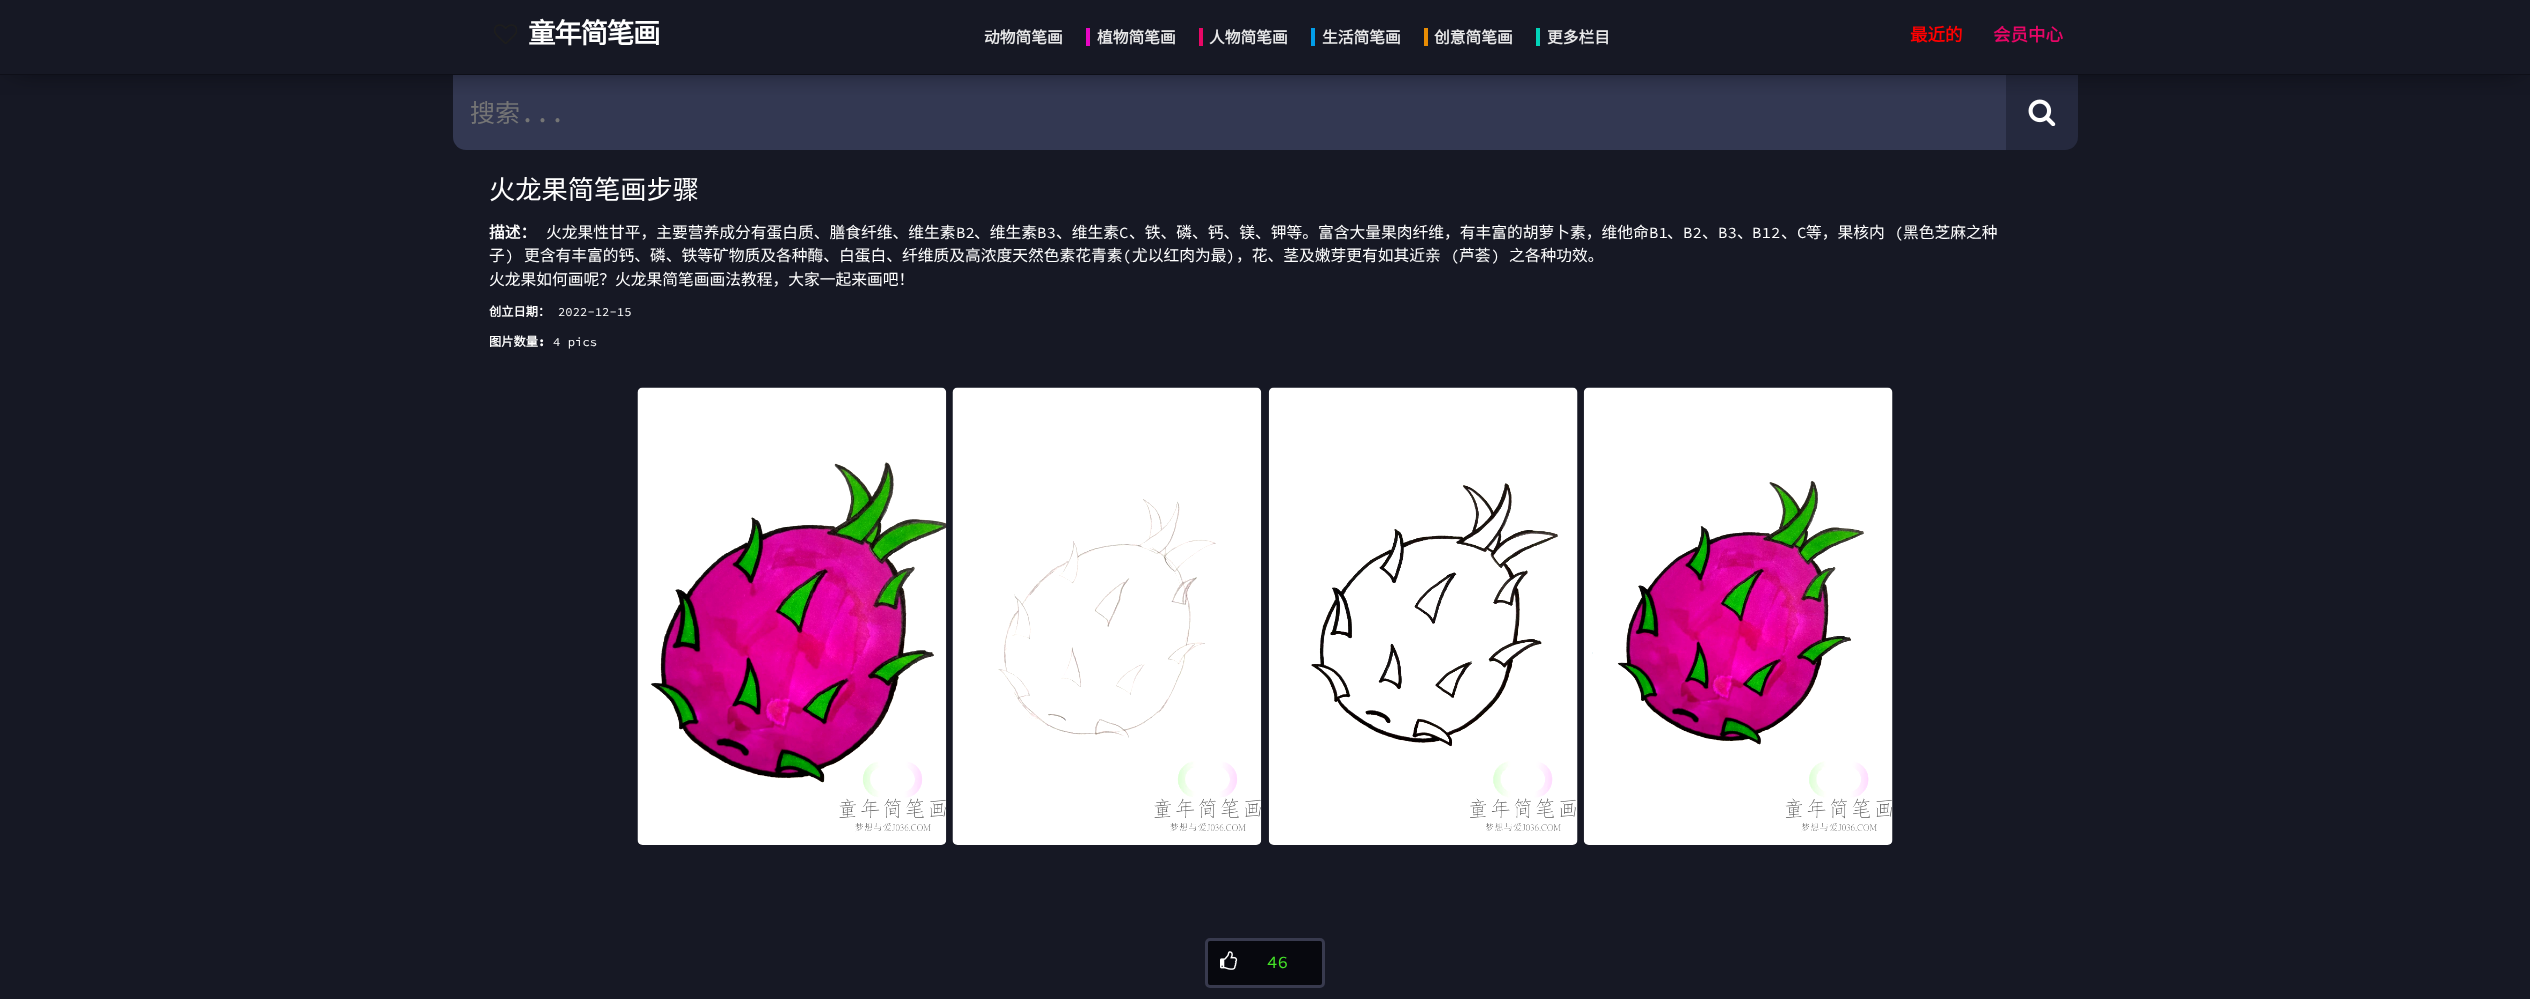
<!DOCTYPE html>
<meta charset="utf-8">
<style>body { margin: 0 } canvas { display: block }</style>
<canvas id="canvas" width="2530" height="999"></canvas>
<img id="img1" src="images/2.png" hidden>
<img id="img2" src="images/1.png" hidden>
<img id="img3" src="images/3.png" hidden>
<img id="img4" src="images/4.png" hidden>
<img id="img5" src="images/5.png" hidden>
<img id="img6" src="images/6.png" hidden>
<img id="img7" src="images/7.png" hidden>
<script>
window.onload = function () {
    const canvas = document.getElementById('canvas');
    const context = canvas.getContext('2d');
    context.miterLimit = 4;
    context.fontKerning = 'normal';

    context.fillStyle = 'rgb(22, 24, 36)';
    context.fillRect(0, 0, 2530, 999);
    context.fillStyle = 'rgb(51, 56, 82)';
    context.beginPath();
    context.roundRect(453, 75, 1553, 75, [0, 0, 0, 13]);
    context.fill();
    context.fillStyle = 'rgb(37, 41, 62)';
    context.beginPath();
    context.roundRect(2006, 75, 72, 75, [0, 0, 13, 0]);
    context.fill();
    context.drawImage(document.getElementById('img1'), 2028, 99, 28, 27);
    context.save();
    context.beginPath();
    context.rect(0, 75, 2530, 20);
    context.clip();
    context.fillStyle = 'rgb(2, 2, 4)';
    context.filter = 'blur(15.5px)';
    context.beginPath();
    context.rect(13, 13, 2505, 50);
    context.fill();
    context.filter = 'none';
    context.restore();
    context.fillStyle = 'rgb(14, 15, 24)';
    context.fillRect(0, 74, 2530, 1);
    context.drawImage(document.getElementById('img2'), 494, 24, 23, 20);
    context.fillStyle = 'rgb(232, 7, 195)';
    context.fillRect(1086, 28, 4, 18);
    context.fillStyle = 'rgb(232, 7, 102)';
    context.fillRect(1199, 28, 4, 18);
    context.fillStyle = 'rgb(2, 158, 233)';
    context.fillRect(1311, 28, 4, 18);
    context.fillStyle = 'rgb(232, 140, 4)';
    context.fillRect(1424, 28, 4, 18);
    context.fillStyle = 'rgb(2, 211, 184)';
    context.fillRect(1536, 28, 4, 18);
    context.drawImage(document.getElementById('img3'), 637, 387, 310, 458);
    context.drawImage(document.getElementById('img4'), 952, 387, 310, 458);
    context.drawImage(document.getElementById('img5'), 1268, 387, 310, 458);
    context.drawImage(document.getElementById('img6'), 1583, 387, 310, 458);
    context.fillStyle = 'rgb(7, 8, 14)';
    context.beginPath();
    context.roundRect(1206.5, 939.5, 117, 47, 3.5);
    context.fill();
    context.strokeStyle = 'rgb(56, 58, 78)';
    context.lineWidth = 3;
    context.stroke();
    context.drawImage(document.getElementById('img7'), 1220, 951, 18, 19);
    context.letterSpacing = '-1.25px';
    context.font = 'bold 27.5px Noto Sans CJK SC';
    context.fillStyle = 'rgb(255, 255, 255)';
    context.fillText('童年简笔画', 528, 43);
    context.letterSpacing = '0px';
    context.font = 'bold 15.75px Noto Sans CJK SC';
    context.fillStyle = 'rgb(232, 232, 233)';
    context.fillText('动物简笔画', 984, 43);
    context.fillText('植物简笔画', 1097, 43);
    context.fillText('人物简笔画', 1209, 43);
    context.fillText('生活简笔画', 1322, 43);
    context.fillText('创意简笔画', 1434, 43);
    context.fillText('更多栏目', 1547, 43);
    context.font = 'bold 17.5px Noto Sans CJK SC';
    context.fillStyle = 'rgb(255, 0, 0)';
    context.fillText('最近的', 1910, 41);
    context.fillStyle = 'rgb(231, 6, 102)';
    context.fillText('会员中心', 1993, 41);
    context.font = '25px Noto Sans CJK SC';
    context.fillStyle = 'rgb(117, 117, 117)';
    context.fillText('搜索', 470, 122);
    context.font = '25px Source Code Pro';
    context.fillText('...', 520, 122);
    context.font = '26.25px Noto Sans CJK SC';
    context.fillStyle = 'rgb(255, 255, 255)';
    context.fillText('火龙果简笔画步骤', 489, 199);
    context.font = 'bold 15.75px Noto Sans CJK SC';
    context.fillText('描述：', 489, 238);
    context.font = '15.75px Noto Sans CJK SC';
    context.fillText('火龙果性甘平，主要营养成分有蛋白质、膳食纤维、维生素', 546, 238);
    context.font = '15.75px Source Code Pro';
    context.fillText('B2', 956, 238);
    context.font = '15.75px Noto Sans CJK SC';
    context.fillText('、维生素', 974, 238);
    context.font = '15.75px Source Code Pro';
    context.fillText('B3', 1037, 238);
    context.font = '15.75px Noto Sans CJK SC';
    context.fillText('、维生素', 1056, 238);
    context.font = '15.75px Source Code Pro';
    context.fillText('C', 1119, 238);
    context.font = '15.75px Noto Sans CJK SC';
    context.fillText('、铁、磷、钙、镁、钾等。富含大量果肉纤维，有丰富的胡萝卜素，维他命', 1129, 238);
    context.font = '15.75px Source Code Pro';
    context.fillText('B1', 1649, 238);
    context.font = '15.75px Noto Sans CJK SC';
    context.fillText('、', 1667, 238);
    context.font = '15.75px Source Code Pro';
    context.fillText('B2', 1683, 238);
    context.font = '15.75px Noto Sans CJK SC';
    context.fillText('、', 1702, 238);
    context.font = '15.75px Source Code Pro';
    context.fillText('B3', 1718, 238);
    context.font = '15.75px Noto Sans CJK SC';
    context.fillText('、', 1737, 238);
    context.font = '15.75px Source Code Pro';
    context.fillText('B12', 1752, 238);
    context.font = '15.75px Noto Sans CJK SC';
    context.fillText('、', 1781, 238);
    context.font = '15.75px Source Code Pro';
    context.fillText('C', 1797, 238);
    context.font = '15.75px Noto Sans CJK SC';
    context.fillText('等，果核内', 1806, 238);
    context.font = '15.75px Source Code Pro';
    context.fillText('(', 1894, 238);
    context.font = '15.75px Noto Sans CJK SC';
    context.fillText('黑色芝麻之种', 1903, 238);
    context.fillText('子', 489, 261);
    context.font = '15.75px Source Code Pro';
    context.fillText(')', 505, 261);
    context.font = '15.75px Noto Sans CJK SC';
    context.fillText('更含有丰富的钙、磷、铁等矿物质及各种酶、白蛋白、纤维质及高浓度天然色素花青素', 524, 261);
    context.font = '15.75px Source Code Pro';
    context.fillText('(', 1122, 261);
    context.font = '15.75px Noto Sans CJK SC';
    context.fillText('尤以红肉为最', 1132, 261);
    context.font = '15.75px Source Code Pro';
    context.fillText(')', 1226, 261);
    context.font = '15.75px Noto Sans CJK SC';
    context.fillText('，花、茎及嫩芽更有如其近亲', 1236, 261);
    context.font = '15.75px Source Code Pro';
    context.fillText('(', 1450, 261);
    context.font = '15.75px Noto Sans CJK SC';
    context.fillText('芦荟', 1459, 261);
    context.font = '15.75px Source Code Pro';
    context.fillText(')', 1491, 261);
    context.font = '15.75px Noto Sans CJK SC';
    context.fillText('之各种功效。', 1509, 261);
    context.fillText('火龙果如何画呢？火龙果简笔画画法教程，大家一起来画吧！', 489, 285);
    context.font = 'bold 12.25px Noto Sans CJK SC';
    context.fillText('创立日期：', 489, 316);
    context.font = '12.25px Source Code Pro';
    context.fillText('2022-12-15', 558, 316);
    context.font = 'bold 12.25px Noto Sans CJK SC';
    context.fillText('图片数量', 489, 346);
    context.font = 'bold 12.25px Source Code Pro';
    context.fillText(':', 538, 346);
    context.font = '12.25px Source Code Pro';
    context.fillText('4 pics', 553, 346);
    context.font = '17.5px Source Code Pro';
    context.fillStyle = 'rgb(69, 228, 40)';
    context.fillText('46', 1267, 968);
};
</script>
